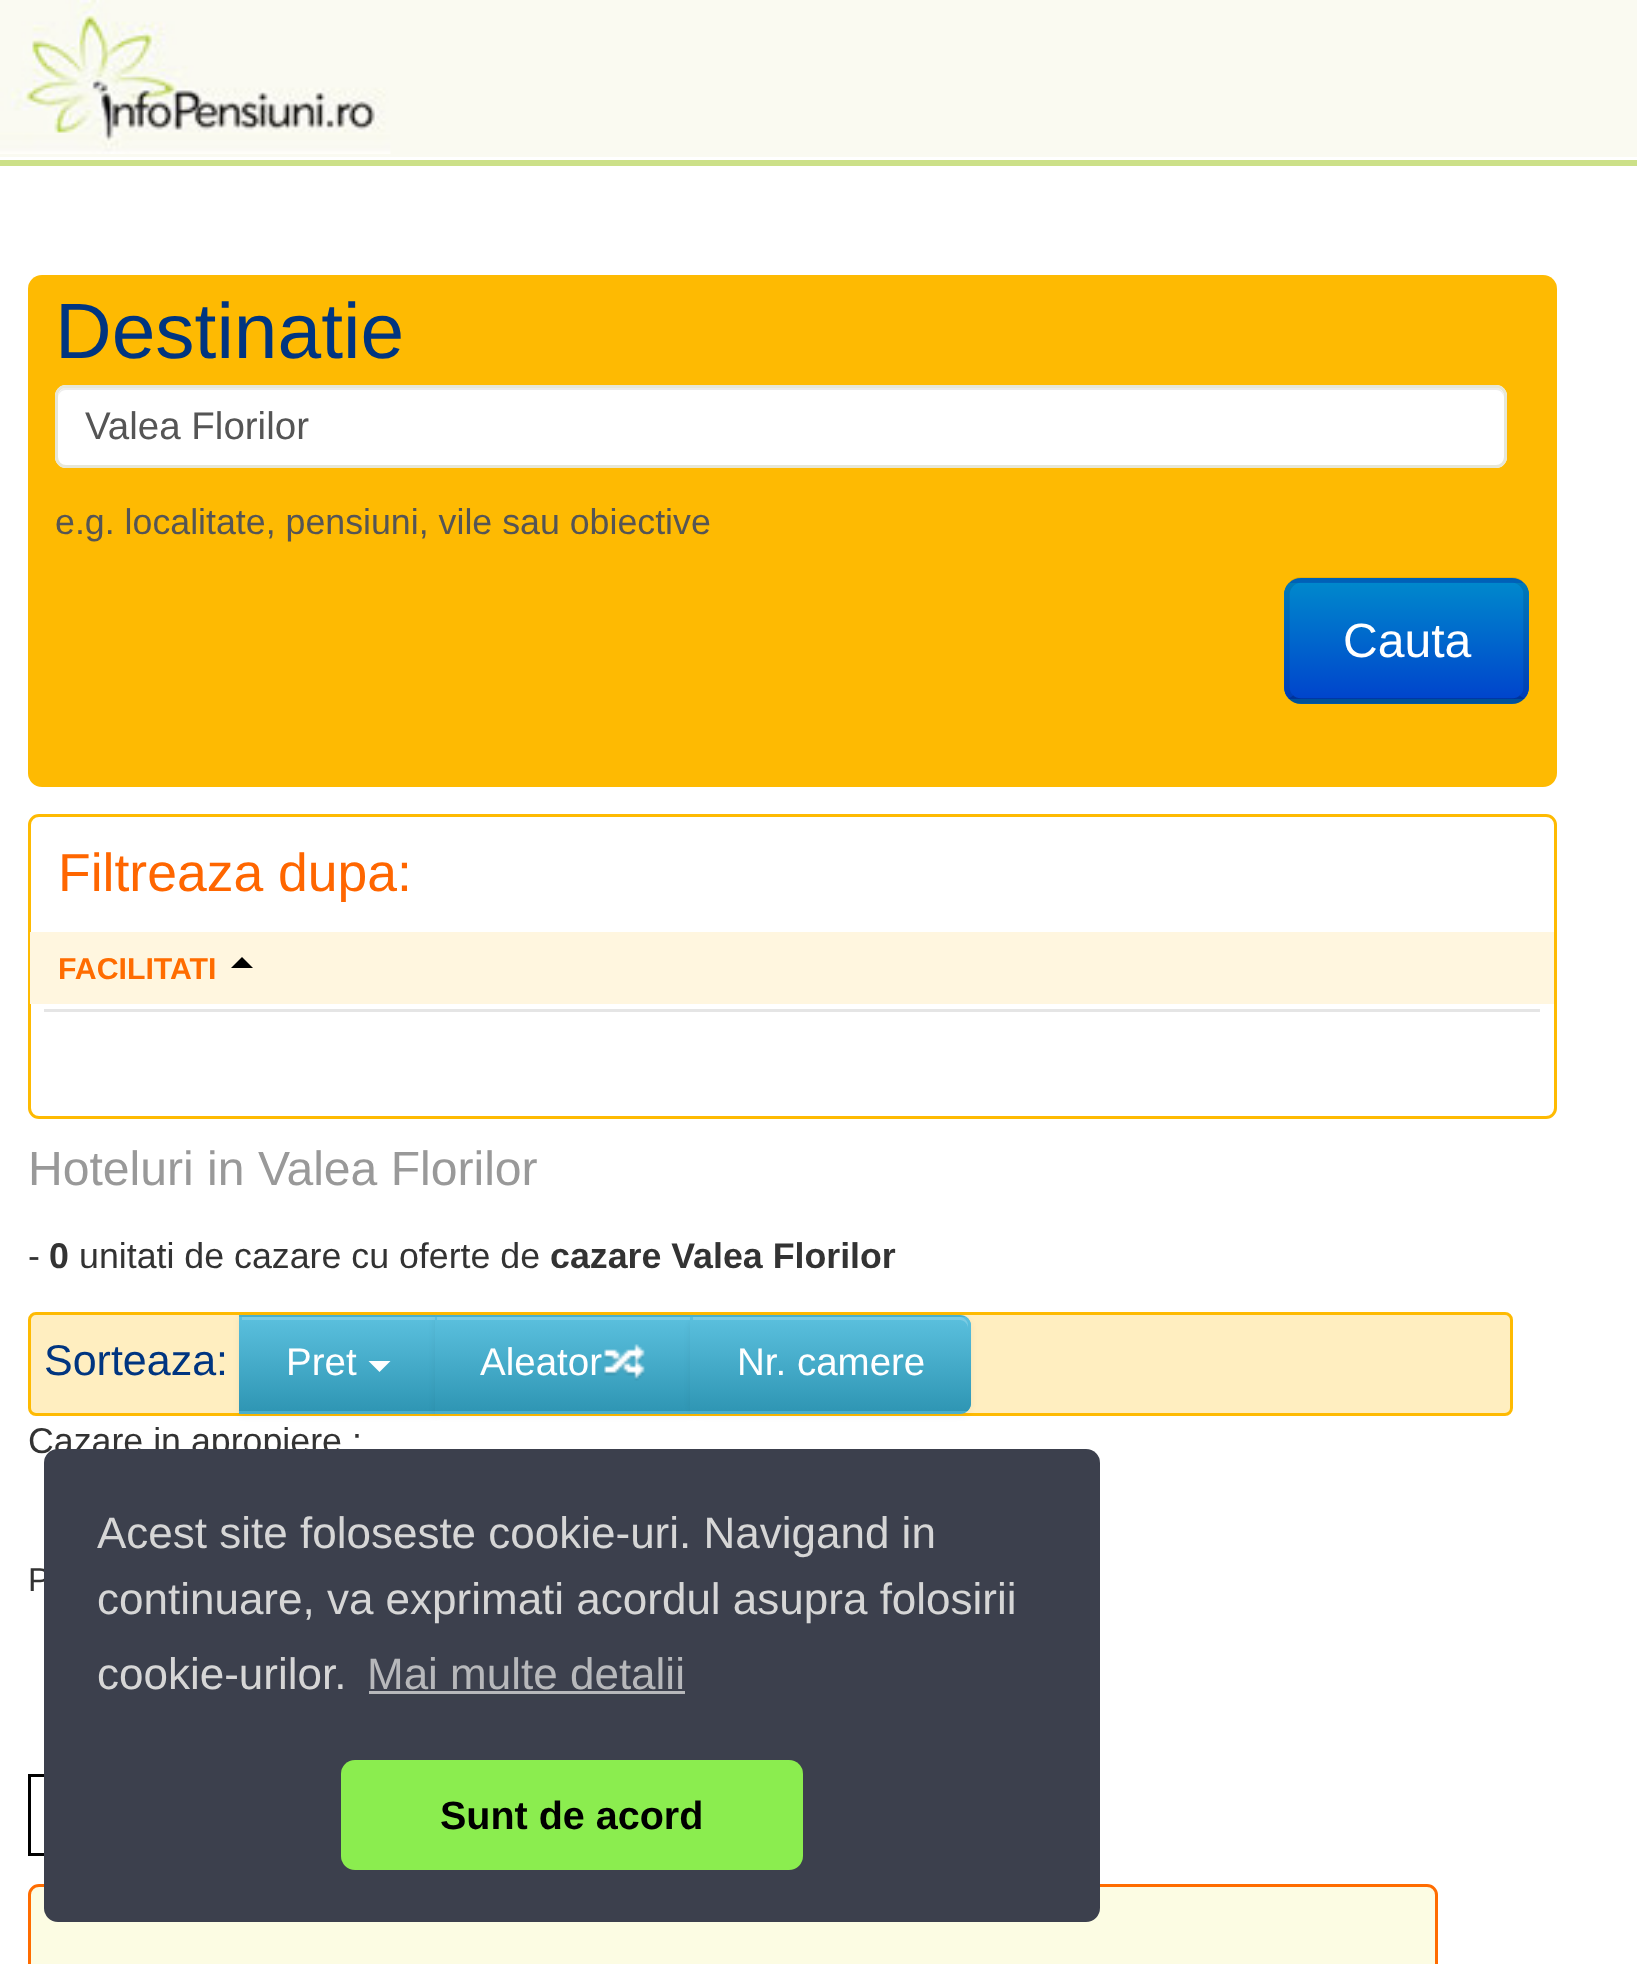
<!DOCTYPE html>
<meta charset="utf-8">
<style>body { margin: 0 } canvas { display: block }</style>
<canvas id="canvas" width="1637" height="1964"></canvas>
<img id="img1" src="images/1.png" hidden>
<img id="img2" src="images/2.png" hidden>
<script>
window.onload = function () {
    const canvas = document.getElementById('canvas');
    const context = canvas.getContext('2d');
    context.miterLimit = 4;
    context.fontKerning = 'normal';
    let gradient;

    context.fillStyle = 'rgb(250, 250, 241)';
    context.fillRect(0, 0, 1637, 1964);
    context.fillStyle = 'rgb(255, 255, 255)';
    context.fillRect(0, 157, 1637, 3);
    context.drawImage(document.getElementById('img1'), 0, 0, 391, 154);
    context.fillRect(0, 166, 1637, 1798);
    context.fillStyle = 'rgb(204, 224, 136)';
    context.fillRect(0, 160, 1637, 6);
    context.fillStyle = 'rgb(254, 186, 2)';
    context.beginPath();
    context.roundRect(28, 275, 1529, 512, 14);
    context.fill();
    context.fillStyle = 'rgb(255, 255, 255)';
    context.beginPath();
    context.roundRect(55, 385, 1452, 83, 11);
    context.fill();
    context.fillStyle = 'rgb(236, 236, 236)';
    context.beginPath();
    context.moveTo(66, 390);
    context.lineTo(1496, 390);
    context.bezierCurveTo(1501, 390, 1504, 394, 1504, 399);
    context.bezierCurveTo(1504, 394, 1502, 388, 1496, 388);
    context.lineTo(66, 388);
    context.bezierCurveTo(60, 388, 58, 394, 58, 399);
    context.bezierCurveTo(58, 394, 61, 390, 66, 390);
    context.closePath();
    context.fill();
    context.beginPath();
    context.roundRect(56.5, 386.5, 1449, 80, 9.5);
    context.strokeStyle = 'rgb(231, 231, 215)';
    context.lineWidth = 3;
    context.stroke();
    context.fillStyle = 'rgb(0, 109, 204)';
    context.beginPath();
    context.roundRect(1284, 578, 245, 126, 17);
    context.fill();
    context.save();
    context.beginPath();
    context.roundRect(1284, 578, 245, 126, 17);
    context.clip();
    gradient = context.createLinearGradient(1407, 583, 1407, 699);
    gradient.addColorStop(0, 'rgb(0, 136, 204)');
    gradient.addColorStop(1, 'rgb(0, 68, 204)');
    context.fillStyle = gradient;
    context.fillRect(1284, 583, 245, 116);
    context.restore();
    context.beginPath();
    context.moveTo(1522, 697);
    context.bezierCurveTo(1519.5, 700, 1516, 701, 1512.5, 701);
    context.lineTo(1301, 701);
    context.bezierCurveTo(1297, 701, 1293.5, 700, 1291, 697);
    context.strokeStyle = 'rgba(0, 0, 0, 0.25)';
    context.lineWidth = 5.5;
    context.stroke();
    context.beginPath();
    context.moveTo(1291, 697);
    context.bezierCurveTo(1288.5, 694.5, 1287, 691, 1287, 687.5);
    context.lineTo(1287, 594);
    context.bezierCurveTo(1287, 590.5, 1288.5, 587, 1291, 584.5);
    context.bezierCurveTo(1293.5, 581.5, 1297, 580, 1301, 580);
    context.lineTo(1512.5, 580);
    context.bezierCurveTo(1516, 580, 1519.5, 581.5, 1522, 584.5);
    context.bezierCurveTo(1525, 587, 1526, 590.5, 1526, 594);
    context.lineTo(1526, 687.5);
    context.bezierCurveTo(1526, 691, 1525, 694.5, 1522, 697);
    context.strokeStyle = 'rgba(0, 0, 0, 0.1)';
    context.stroke();
    context.beginPath();
    context.roundRect(29.5, 815.5, 1526, 302, 9.5);
    context.strokeStyle = 'rgb(254, 186, 2)';
    context.lineWidth = 3;
    context.stroke();
    context.fillStyle = 'rgb(255, 246, 223)';
    context.fillRect(30, 932, 1524, 72);
    context.fillStyle = 'rgb(0, 0, 0)';
    context.beginPath();
    context.moveTo(253, 968);
    context.lineTo(231, 968);
    context.lineTo(242, 957);
    context.closePath();
    context.fill();
    context.fillStyle = 'rgb(229, 229, 229)';
    context.fillRect(44, 1009, 1496, 3);
    context.fillStyle = 'rgb(255, 238, 192)';
    context.beginPath();
    context.roundRect(29.5, 1313.5, 1482, 101, 6.5);
    context.fill();
    context.stroke();
    context.fillStyle = 'rgba(0, 0, 0, 0.05)';
    context.filter = 'blur(3px)';
    context.beginPath();
    context.rect(239, 1317, 198, 99);
    context.fill();
    context.filter = 'none';
    context.fillStyle = 'rgb(73, 175, 205)';
    context.fillRect(239, 1315, 196, 99);
    gradient = context.createLinearGradient(338, 1317, 338, 1411);
    gradient.addColorStop(0, 'rgb(91, 192, 222)');
    gradient.addColorStop(1, 'rgb(47, 150, 180)');
    context.fillStyle = gradient;
    context.fillRect(239, 1317, 196, 94);
    context.fillStyle = 'rgb(123, 204, 228)';
    context.fillRect(242, 1317, 193, 3);
    context.fillStyle = 'rgb(255, 255, 255)';
    context.beginPath();
    context.moveTo(368.5, 1361);
    context.lineTo(390.5, 1361);
    context.lineTo(379.5, 1372);
    context.closePath();
    context.fill();
    context.fillStyle = 'rgba(0, 0, 0, 0.05)';
    context.filter = 'blur(3px)';
    context.beginPath();
    context.rect(435, 1317, 258, 99);
    context.fill();
    context.filter = 'none';
    context.fillStyle = 'rgb(73, 175, 205)';
    context.fillRect(435, 1315, 255, 99);
    gradient = context.createLinearGradient(564, 1317, 564, 1411);
    gradient.addColorStop(0, 'rgb(91, 192, 222)');
    gradient.addColorStop(1, 'rgb(47, 150, 180)');
    context.fillStyle = gradient;
    context.fillRect(435, 1317, 255, 94);
    context.fillStyle = 'rgb(123, 204, 228)';
    context.fillRect(437, 1317, 253, 3);
    context.drawImage(document.getElementById('img2'), 604, 1344, 41, 37);
    context.fillStyle = 'rgba(0, 0, 0, 0.05)';
    context.filter = 'blur(3px)';
    context.beginPath();
    context.roundRect(690, 1317, 281, 99, 11);
    context.fill();
    context.filter = 'none';
    context.fillStyle = 'rgb(73, 175, 205)';
    context.beginPath();
    context.roundRect(690, 1315, 281, 99, [0, 11, 11, 0]);
    context.fill();
    context.save();
    context.beginPath();
    context.roundRect(690, 1315, 281, 99, [0, 11, 11, 0]);
    context.clip();
    gradient = context.createLinearGradient(831, 1317, 831, 1411);
    gradient.addColorStop(0, 'rgb(91, 192, 222)');
    gradient.addColorStop(1, 'rgb(47, 150, 180)');
    context.fillStyle = gradient;
    context.fillRect(690, 1317, 281, 94);
    context.restore();
    context.fillStyle = 'rgba(255, 255, 255, 0.2)';
    context.beginPath();
    context.moveTo(693, 1320);
    context.lineTo(960, 1320);
    context.bezierCurveTo(964, 1320, 968, 1324, 968, 1328);
    context.lineTo(968, 1325);
    context.bezierCurveTo(968, 1321, 964, 1317, 960, 1317);
    context.lineTo(693, 1317);
    context.closePath();
    context.fill();
    context.strokeStyle = 'rgb(0, 0, 0)';
    context.strokeRect(29.5, 1775.5, 626, 79);
    context.fillStyle = 'rgb(252, 252, 227)';
    context.beginPath();
    context.roundRect(29.5, 1885.5, 1407, 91, 9.5);
    context.fill();
    context.strokeStyle = 'rgb(255, 108, 0)';
    context.stroke();
    context.font = '78.5px Liberation Sans';
    context.fillStyle = 'rgb(0, 53, 128)';
    context.fillText('Destinatie', 55, 358);
    context.font = '38.5px Liberation Sans';
    context.fillStyle = 'rgb(85, 85, 85)';
    context.fillText('Valea Florilor', 85, 439);
    context.font = '35.75px Liberation Sans';
    context.fillText('e.g. localitate, pensiuni, vile sau obiective', 55, 534);
    context.font = '48.1px Liberation Sans';
    context.fillStyle = 'rgb(255, 255, 255)';
    context.fillText('Cauta', 1343, 657);
    context.font = '53.5px Liberation Sans';
    context.fillStyle = 'rgb(255, 102, 0)';
    context.fillText('Filtreaza dupa:', 58, 891);
    context.font = 'bold 30.25px Liberation Sans';
    context.fillStyle = 'rgb(255, 108, 0)';
    context.fillText('FACILITATI', 58, 979);
    context.font = '48.1px Liberation Sans';
    context.fillStyle = 'rgb(153, 153, 153)';
    context.fillText('Hoteluri in Valea Florilor', 28, 1185);
    context.font = '35.75px Liberation Sans';
    context.fillStyle = 'rgb(51, 51, 51)';
    context.fillText('-', 28, 1268);
    context.font = 'bold 35.75px Liberation Sans';
    context.fillText('0', 49, 1268);
    context.font = '35.75px Liberation Sans';
    context.fillText('unitati de cazare cu oferte de', 79, 1268);
    context.font = 'bold 35.75px Liberation Sans';
    context.fillText('cazare Valea Florilor', 550, 1268);
    context.font = '43px Liberation Sans';
    context.fillStyle = 'rgb(0, 53, 128)';
    context.fillText('Sorteaza:', 44, 1375);
    context.font = '38.5px Liberation Sans';
    context.fillStyle = 'rgb(255, 255, 255)';
    context.fillText('Pret', 286, 1375);
    context.fillText('Aleator', 480, 1375);
    context.fillText('Nr. camere', 737, 1375);
    context.font = '35.75px Liberation Sans';
    context.fillStyle = 'rgb(51, 51, 51)';
    context.fillText('Cazare in apropiere :', 28, 1453);
    context.font = '33px Liberation Sans';
    context.fillText('P', 28, 1591);
    context.fillStyle = 'rgb(60, 64, 77)';
    context.beginPath();
    context.roundRect(44, 1449, 1056, 473, 14);
    context.fill();
    context.font = '44px Liberation Sans';
    context.fillStyle = 'rgb(214, 214, 214)';
    context.fillText('Acest site foloseste cookie-uri. Navigand in', 97, 1548);
    context.fillText('continuare, va exprimati acordul asupra folosirii', 97, 1614);
    context.fillText('cookie-urilor.', 97, 1689);
    context.fillStyle = 'rgb(183, 184, 187)';
    context.fillText('Mai multe detalii', 367, 1689);
    context.fillRect(369, 1691, 316, 3);
    context.fillStyle = 'rgb(139, 237, 79)';
    context.beginPath();
    context.roundRect(341, 1760, 462, 110, 14);
    context.fill();
    context.font = 'bold 39.5px Liberation Sans';
    context.fillStyle = 'rgb(0, 0, 0)';
    context.fillText('Sunt de acord', 440, 1829);
};
</script>
